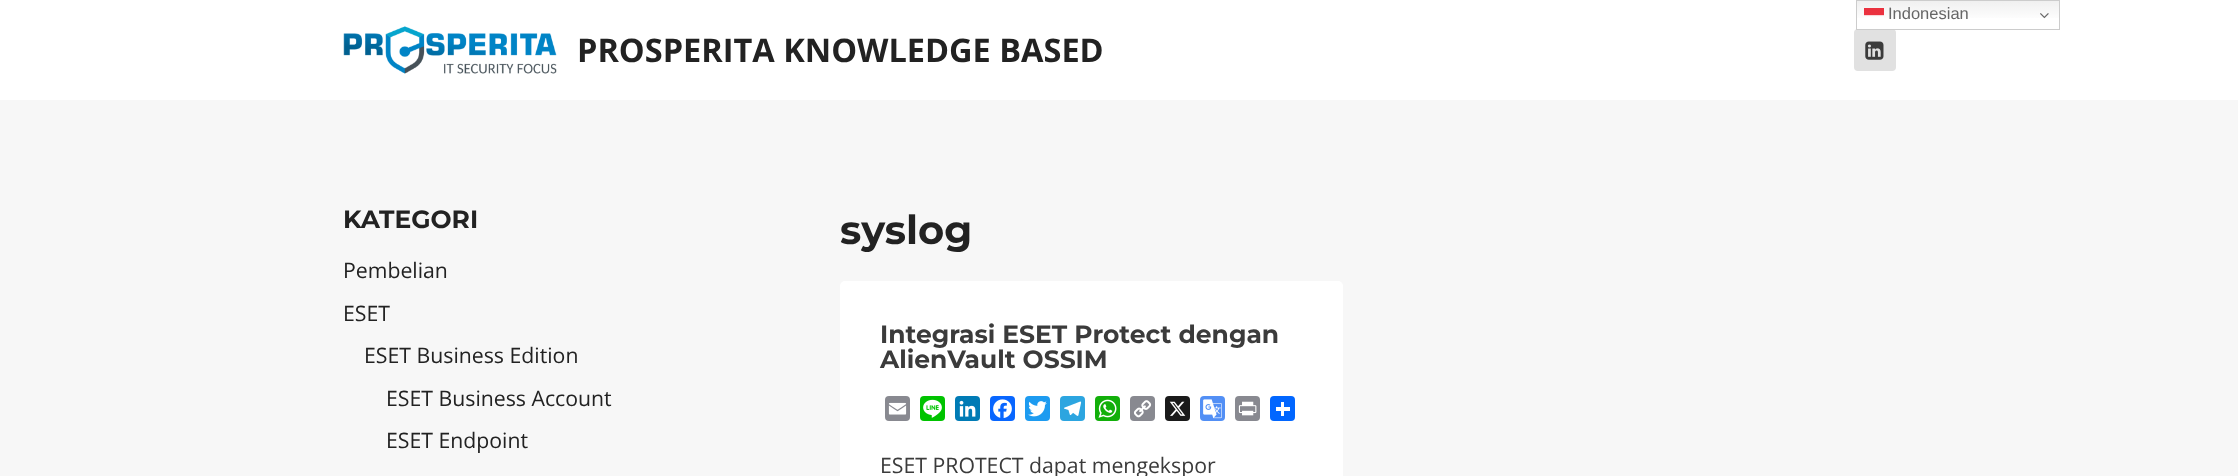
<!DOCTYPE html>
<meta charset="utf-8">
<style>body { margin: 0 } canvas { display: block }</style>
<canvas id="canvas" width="2238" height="476"></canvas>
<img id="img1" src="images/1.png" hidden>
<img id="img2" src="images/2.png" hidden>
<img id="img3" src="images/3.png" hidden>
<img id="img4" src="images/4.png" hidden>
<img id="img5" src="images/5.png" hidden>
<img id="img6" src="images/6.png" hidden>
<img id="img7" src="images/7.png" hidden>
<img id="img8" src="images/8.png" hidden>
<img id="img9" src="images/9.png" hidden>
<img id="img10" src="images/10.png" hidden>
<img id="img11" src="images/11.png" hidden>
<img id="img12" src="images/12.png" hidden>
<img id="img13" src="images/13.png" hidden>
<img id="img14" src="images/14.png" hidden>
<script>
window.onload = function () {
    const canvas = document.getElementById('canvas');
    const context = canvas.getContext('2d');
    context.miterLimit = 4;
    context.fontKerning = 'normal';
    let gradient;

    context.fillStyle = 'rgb(247, 247, 247)';
    context.fillRect(0, 0, 2238, 476);
    context.fillStyle = 'rgb(255, 255, 255)';
    context.fillRect(0, 0, 2238, 100);
    gradient = context.createLinearGradient(1958, 0, 1958, 30);
    gradient.addColorStop(0, 'rgb(239, 239, 239)');
    gradient.addColorStop(0.7, 'rgb(255, 255, 255)');
    context.fillStyle = gradient;
    context.fillRect(1857, 1, 202, 17);
    gradient = context.createLinearGradient(1958, 0, 1958, 30);
    gradient.addColorStop(0, 'rgb(252, 252, 252)');
    gradient.addColorStop(0.7, 'rgb(255, 255, 255)');
    context.fillStyle = gradient;
    context.fillRect(1864, 17, 20, 1);
    gradient = context.createLinearGradient(1958, 0, 1958, 30);
    gradient.addColorStop(0, 'rgb(233, 48, 61)');
    gradient.addColorStop(0.7, 'rgb(236, 51, 65)');
    context.fillStyle = gradient;
    context.fillRect(1864, 8, 20, 7);
    gradient = context.createLinearGradient(1958, 0, 1958, 30);
    gradient.addColorStop(0, 'rgb(251, 214, 216)');
    gradient.addColorStop(0.7, 'rgb(251, 214, 217)');
    context.fillStyle = gradient;
    context.fillRect(1864, 15, 20, 1);
    context.fillStyle = 'rgb(225, 225, 225)';
    context.beginPath();
    context.roundRect(1854, 29, 42, 42, 4);
    context.fill();
    context.strokeStyle = 'rgb(204, 204, 204)';
    context.strokeRect(1856.5, 0.5, 203, 29);
    context.drawImage(document.getElementById('img1'), 2040, 13, 9, 6);
    context.drawImage(document.getElementById('img2'), 343, 26, 214, 48);
    context.drawImage(document.getElementById('img3'), 1865, 41, 19, 19);
    context.fillStyle = 'rgb(255, 255, 255)';
    context.beginPath();
    context.roundRect(840, 281, 503, 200, 5);
    context.fill();
    context.fillStyle = 'rgb(136, 137, 144)';
    context.beginPath();
    context.roundRect(885, 396, 25, 25, 4);
    context.fill();
    context.drawImage(document.getElementById('img4'), 888, 402, 19, 13);
    context.fillStyle = 'rgb(0, 195, 0)';
    context.beginPath();
    context.roundRect(920, 396, 25, 25, 4);
    context.fill();
    context.drawImage(document.getElementById('img5'), 923, 399, 19, 19);
    context.fillStyle = 'rgb(0, 123, 181)';
    context.beginPath();
    context.roundRect(955, 396, 25, 25, 4);
    context.fill();
    context.drawImage(document.getElementById('img6'), 959, 400, 17, 17);
    context.fillStyle = 'rgb(8, 102, 255)';
    context.beginPath();
    context.roundRect(990, 396, 25, 25, 4);
    context.fill();
    context.drawImage(document.getElementById('img7'), 993, 399, 19, 19);
    context.fillStyle = 'rgb(29, 155, 240)';
    context.beginPath();
    context.roundRect(1025, 396, 25, 25, 4);
    context.fill();
    context.drawImage(document.getElementById('img8'), 1028, 401, 19, 16);
    context.fillStyle = 'rgb(44, 165, 224)';
    context.beginPath();
    context.roundRect(1060, 396, 25, 25, 4);
    context.fill();
    context.drawImage(document.getElementById('img9'), 1064, 401, 18, 15);
    context.fillStyle = 'rgb(18, 175, 10)';
    context.beginPath();
    context.roundRect(1095, 396, 25, 25, 4);
    context.fill();
    context.drawImage(document.getElementById('img10'), 1098, 399, 19, 19);
    context.fillStyle = 'rgb(136, 137, 144)';
    context.beginPath();
    context.roundRect(1130, 396, 25, 25, 4);
    context.fill();
    context.drawImage(document.getElementById('img11'), 1133, 400, 19, 18);
    context.fillStyle = 'rgb(26, 26, 26)';
    context.beginPath();
    context.roundRect(1165, 396, 25, 25, 4);
    context.fill();
    context.drawImage(document.getElementById('img12'), 1169, 401, 17, 15);
    context.fillStyle = 'rgb(82, 143, 245)';
    context.beginPath();
    context.roundRect(1200, 396, 25, 25, 4);
    context.fill();
    context.drawImage(document.getElementById('img13'), 1203, 399, 19, 20);
    context.fillStyle = 'rgb(136, 137, 144)';
    context.beginPath();
    context.roundRect(1235, 396, 25, 25, 4);
    context.fill();
    context.drawImage(document.getElementById('img14'), 1238, 401, 19, 15);
    context.fillStyle = 'rgb(1, 102, 255)';
    context.beginPath();
    context.roundRect(1270, 396, 25, 25, 4);
    context.fill();
    context.fillStyle = 'rgb(255, 255, 255)';
    context.fillRect(1281, 402, 3, 14);
    context.fillRect(1276, 407, 14, 4);
    context.font = '16.5px Liberation Sans';
    context.fillStyle = 'rgb(102, 102, 102)';
    context.fillText('Indonesian', 1888, 19);
    context.font = 'bold 32.5px Open Sans';
    context.fillStyle = 'rgb(34, 34, 34)';
    context.fillText('PROSPERITA KNOWLEDGE BASED', 577, 62);
    context.font = 'bold 25px Montserrat';
    context.fillText('KATEGORI', 343, 228);
    context.font = '21.25px Open Sans';
    context.fillText('Pembelian', 343, 278);
    context.fillText('ESET', 343, 321);
    context.fillText('ESET Business Edition', 364, 363);
    context.fillText('ESET Business Account', 386, 406);
    context.fillText('ESET Endpoint', 386, 448);
    context.font = 'bold 40px Montserrat';
    context.fillText('syslog', 840, 244);
    context.font = 'bold 25px Montserrat';
    context.fillStyle = 'rgb(59, 59, 59)';
    context.fillText('Integrasi ESET Protect dengan', 880, 343);
    context.fillText('AlienVault OSSIM', 880, 368);
    context.font = '21.25px Open Sans';
    context.fillText('ESET PROTECT dapat mengekspor', 880, 473);
};
</script>
